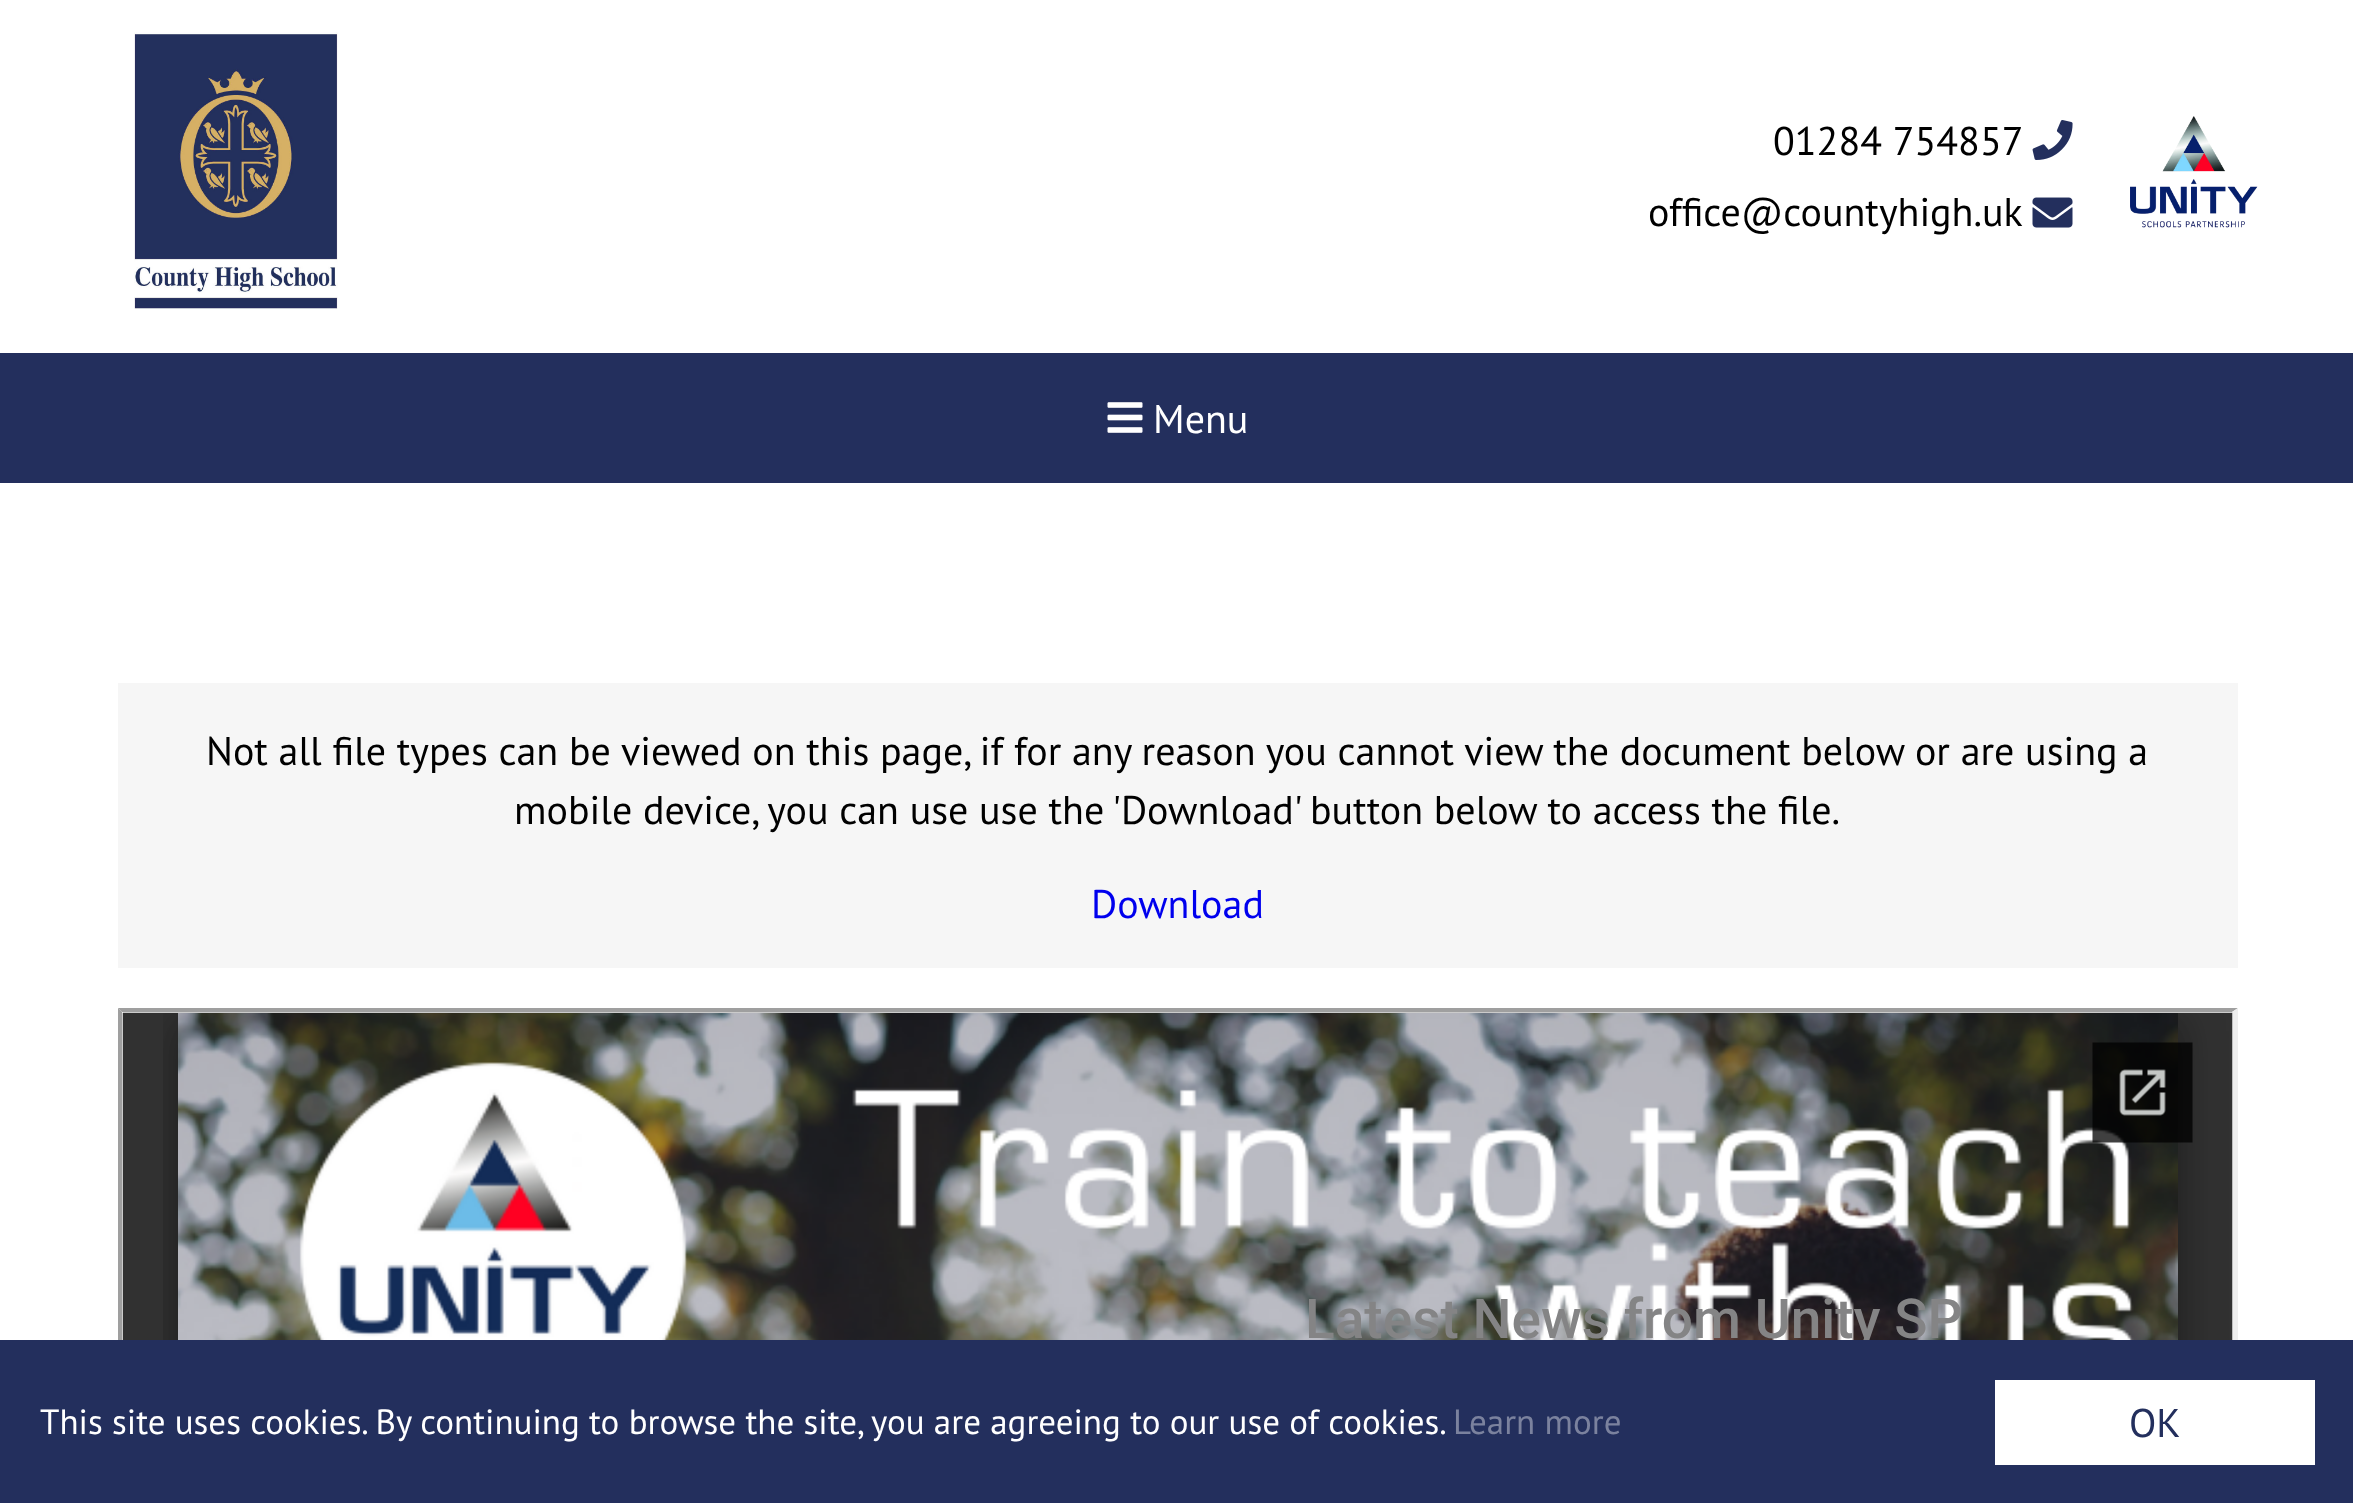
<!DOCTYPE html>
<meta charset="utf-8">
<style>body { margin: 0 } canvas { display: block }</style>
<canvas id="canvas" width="2353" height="1503"></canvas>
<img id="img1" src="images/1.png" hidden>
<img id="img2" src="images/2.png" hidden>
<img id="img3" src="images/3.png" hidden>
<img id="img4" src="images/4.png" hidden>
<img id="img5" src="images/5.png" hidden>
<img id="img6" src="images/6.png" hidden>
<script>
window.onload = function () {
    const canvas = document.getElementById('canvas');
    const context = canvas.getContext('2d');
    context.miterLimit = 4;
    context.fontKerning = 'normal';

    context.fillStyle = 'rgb(255, 255, 255)';
    context.fillRect(0, 0, 2353, 1503);
    context.drawImage(document.getElementById('img1'), 134, 32, 204, 277);
    context.drawImage(document.getElementById('img2'), 2032, 120, 41, 40);
    context.drawImage(document.getElementById('img3'), 2032, 197, 41, 31);
    context.drawImage(document.getElementById('img4'), 2130, 116, 128, 112);
    context.fillStyle = 'rgb(35, 47, 93)';
    context.fillRect(0, 353, 2353, 130);
    context.drawImage(document.getElementById('img5'), 1107, 402, 36, 31);
    context.fillStyle = 'rgb(246, 246, 246)';
    context.fillRect(118, 683, 2120, 285);
    context.fillStyle = 'rgb(159, 159, 159)';
    context.beginPath();
    context.moveTo(118, 1008);
    context.lineTo(2238, 1008);
    context.lineTo(2232, 1012);
    context.lineTo(122, 1012);
    context.closePath();
    context.fill();
    context.beginPath();
    context.moveTo(118, 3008);
    context.lineTo(118, 1008);
    context.lineTo(122, 1012);
    context.lineTo(122, 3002);
    context.closePath();
    context.fill();
    context.fillStyle = 'rgb(238, 238, 238)';
    context.beginPath();
    context.moveTo(2238, 1008);
    context.lineTo(2238, 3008);
    context.lineTo(2232, 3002);
    context.lineTo(2232, 1012);
    context.closePath();
    context.fill();
    context.drawImage(document.getElementById('img6'), 122, 1012, 2111, 328);
    context.font = '40px PT Sans';
    context.fillStyle = 'rgb(0, 0, 0)';
    context.fillText('01284 754857', 1773, 155);
    context.fillText('office@countyhigh.uk', 1648, 226);
    context.fillStyle = 'rgb(255, 255, 255)';
    context.fillText('Menu', 1153, 433);
    context.fillStyle = 'rgb(0, 0, 0)';
    context.fillText('Not all file types can be viewed on this page, if for any reason you cannot view the document below or are using a', 206, 765);
    context.fillText('mobile device, you can use use the \'Download\' button below to access the file.', 514, 824);
    context.fillStyle = 'rgb(0, 0, 238)';
    context.fillText('Download', 1091, 918);
    context.font = '500 55px Roboto';
    context.fillStyle = 'rgb(132, 132, 133)';
    context.fillText('Latest News from Unity SP', 1305, 1338);
    context.fillStyle = 'rgb(35, 47, 93)';
    context.fillRect(0, 1340, 2353, 163);
    context.font = '35px PT Sans';
    context.fillStyle = 'rgb(255, 255, 255)';
    context.fillText('This site uses cookies. By continuing to browse the site, you are agreeing to our use of cookies.', 40, 1434);
    context.fillStyle = 'rgb(123, 130, 158)';
    context.fillText('Learn more', 1453, 1434);
    context.fillStyle = 'rgb(255, 255, 255)';
    context.fillRect(1995, 1380, 320, 85);
    context.font = '40px PT Sans';
    context.fillStyle = 'rgb(35, 47, 93)';
    context.fillText('OK', 2129, 1437);
};
</script>
